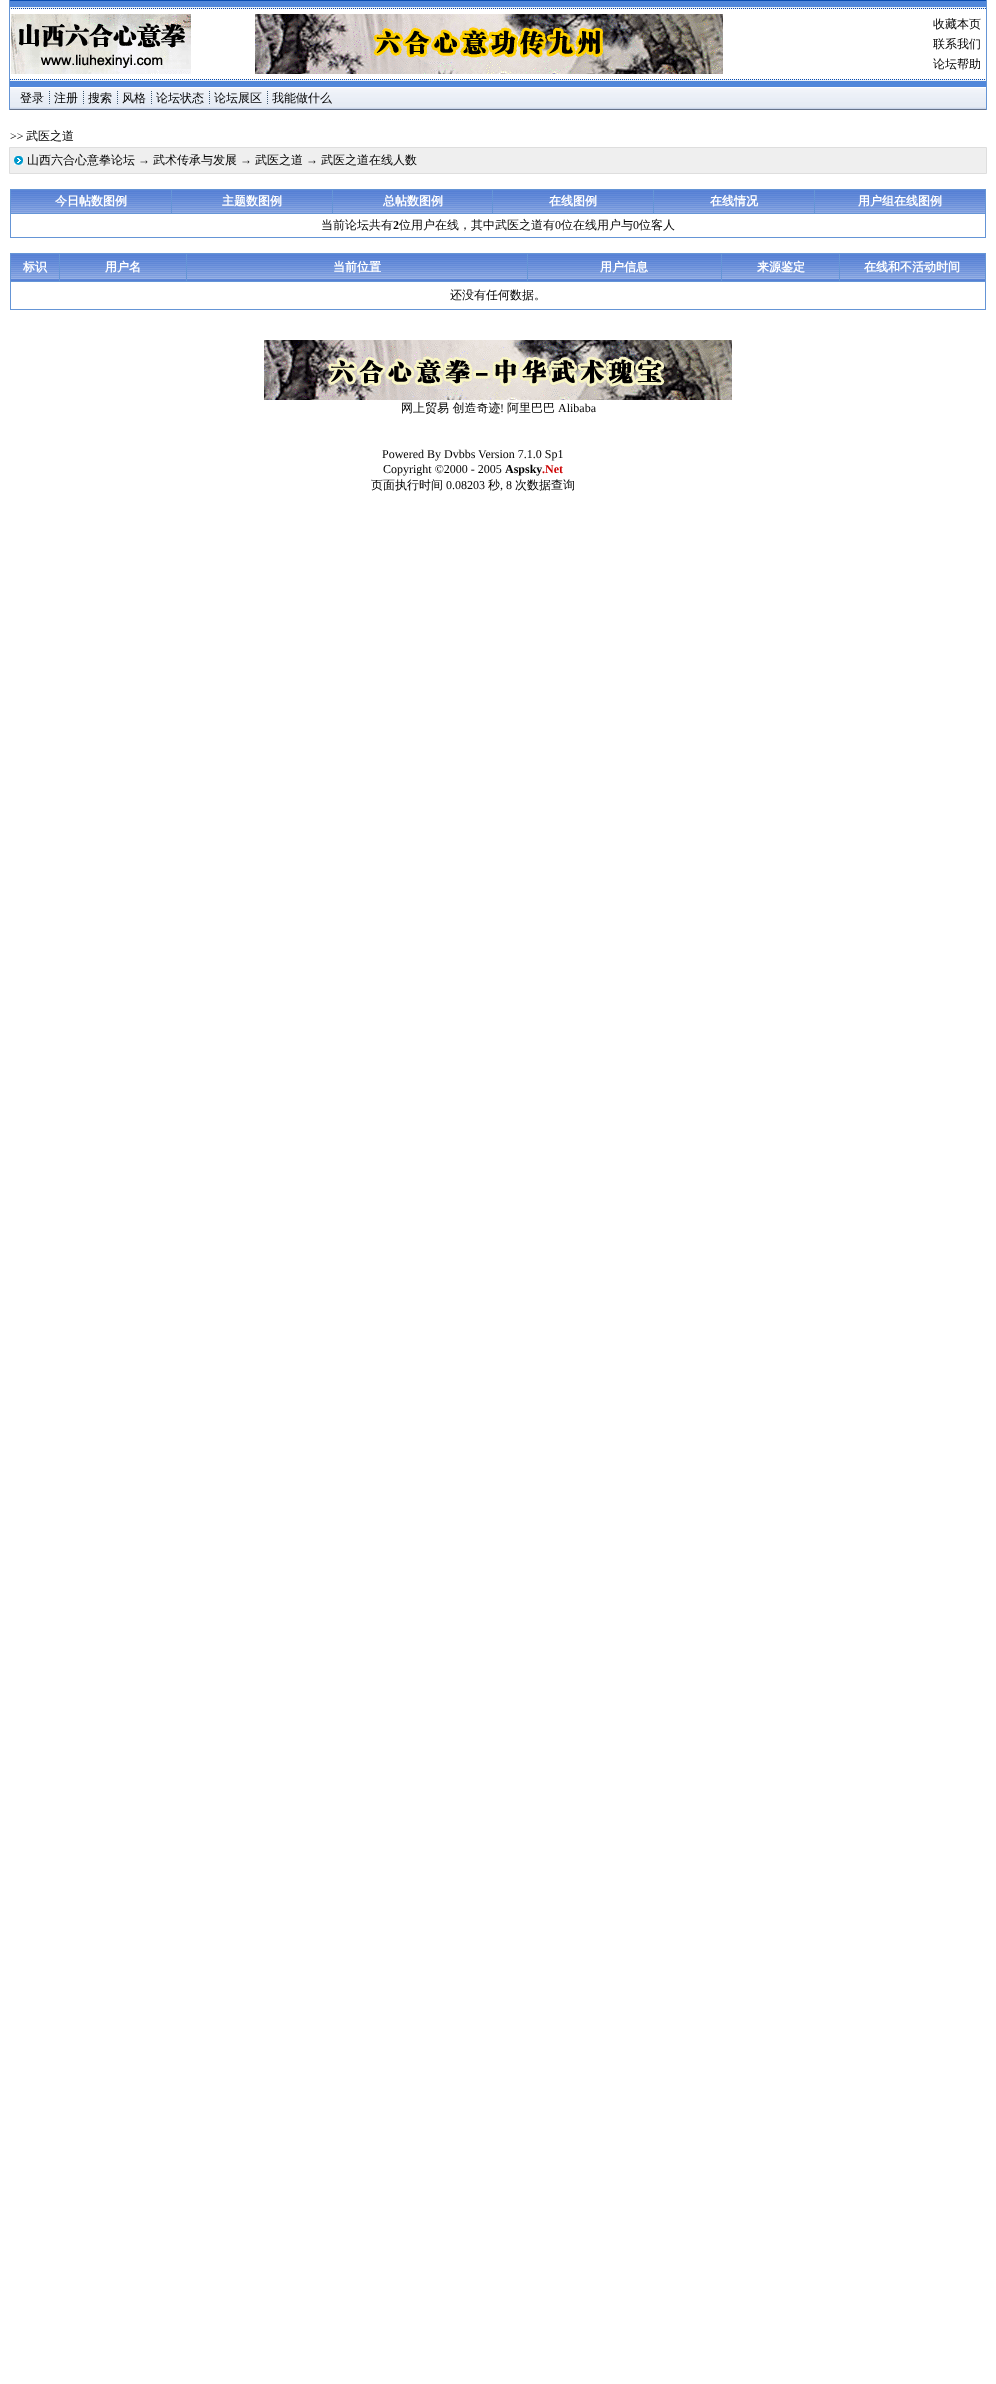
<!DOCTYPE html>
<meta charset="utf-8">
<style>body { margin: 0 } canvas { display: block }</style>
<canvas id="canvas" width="996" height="2384"></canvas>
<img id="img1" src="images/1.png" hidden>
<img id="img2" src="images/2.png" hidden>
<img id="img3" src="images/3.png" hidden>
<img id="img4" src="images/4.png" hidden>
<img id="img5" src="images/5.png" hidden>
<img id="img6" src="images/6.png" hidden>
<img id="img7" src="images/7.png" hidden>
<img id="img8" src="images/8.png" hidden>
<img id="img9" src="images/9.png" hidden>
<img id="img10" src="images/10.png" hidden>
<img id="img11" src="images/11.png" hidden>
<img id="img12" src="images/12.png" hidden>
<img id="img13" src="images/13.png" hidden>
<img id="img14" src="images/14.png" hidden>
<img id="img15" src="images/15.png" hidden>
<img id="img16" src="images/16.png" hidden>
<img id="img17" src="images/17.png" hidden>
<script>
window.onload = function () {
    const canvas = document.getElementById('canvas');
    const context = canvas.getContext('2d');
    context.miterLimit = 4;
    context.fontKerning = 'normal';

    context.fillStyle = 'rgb(255, 255, 255)';
    context.fillRect(0, 0, 996, 2384);
    context.drawImage(document.getElementById('img1'), 10, 0, 976, 9);
    context.fillStyle = 'rgb(101, 149, 214)';
    context.fillRect(986, 0, 1, 110);
    context.fillRect(9, 0, 1, 110);
    context.drawImage(document.getElementById('img2'), 11, 14, 180, 60);
    context.drawImage(document.getElementById('img3'), 255, 14, 468, 60);
    context.drawImage(document.getElementById('img4'), 10, 79, 976, 8);
    context.drawImage(document.getElementById('img5'), 10, 88, 976, 22);
    context.drawImage(document.getElementById('img6'), 49, 91, 1, 13);
    context.drawImage(document.getElementById('img6'), 83, 91, 1, 13);
    context.drawImage(document.getElementById('img6'), 117, 91, 1, 13);
    context.drawImage(document.getElementById('img6'), 151, 91, 1, 13);
    context.drawImage(document.getElementById('img6'), 209, 91, 1, 13);
    context.drawImage(document.getElementById('img6'), 267, 91, 1, 13);
    context.fillStyle = 'rgb(239, 239, 239)';
    context.beginPath();
    context.rect(9.5, 147.5, 977, 26);
    context.fill();
    context.strokeStyle = 'rgb(222, 222, 222)';
    context.stroke();
    context.drawImage(document.getElementById('img7'), 14, 156, 9, 9);
    context.fillStyle = 'rgb(101, 149, 214)';
    context.fillRect(10, 189, 976, 49);
    context.drawImage(document.getElementById('img8'), 11, 190, 160, 23);
    context.drawImage(document.getElementById('img8'), 172, 190, 160, 23);
    context.drawImage(document.getElementById('img9'), 333, 190, 159, 23);
    context.drawImage(document.getElementById('img8'), 493, 190, 160, 23);
    context.drawImage(document.getElementById('img8'), 654, 190, 160, 23);
    context.drawImage(document.getElementById('img10'), 815, 190, 170, 23);
    context.fillStyle = 'rgb(255, 255, 255)';
    context.fillRect(11, 214, 974, 23);
    context.fillStyle = 'rgb(101, 149, 214)';
    context.fillRect(10, 253, 976, 57);
    context.drawImage(document.getElementById('img11'), 11, 254, 48, 27);
    context.drawImage(document.getElementById('img12'), 60, 254, 126, 27);
    context.drawImage(document.getElementById('img13'), 187, 254, 340, 27);
    context.drawImage(document.getElementById('img14'), 528, 254, 193, 27);
    context.drawImage(document.getElementById('img15'), 722, 254, 117, 27);
    context.drawImage(document.getElementById('img16'), 840, 254, 145, 27);
    context.fillStyle = 'rgb(255, 255, 255)';
    context.fillRect(11, 282, 974, 27);
    context.drawImage(document.getElementById('img17'), 264, 340, 468, 60);
    context.font = '500 12px WenQuanYi Zen Hei';
    context.fillStyle = 'rgb(0, 0, 0)';
    context.fillText('收藏本页', 933, 28);
    context.fillText('联系我们', 933, 48);
    context.fillText('论坛帮助', 933, 68);
    context.fillText('登录', 20, 102);
    context.fillText('注册', 54, 102);
    context.fillText('搜索', 88, 102);
    context.fillText('风格', 122, 102);
    context.fillText('论坛状态', 156, 102);
    context.fillText('论坛展区', 214, 102);
    context.fillText('我能做什么', 272, 102);
    context.font = '12px Liberation Serif';
    context.fillText('>>', 10, 140);
    context.font = '500 12px WenQuanYi Zen Hei';
    context.fillText('武医之道', 26, 140);
    context.fillText('山西六合心意拳论坛', 27, 164);
    context.font = '12px Liberation Serif';
    context.fillText('→', 138, 164);
    context.font = '500 12px WenQuanYi Zen Hei';
    context.fillText('武术传承与发展', 153, 164);
    context.font = '12px Liberation Serif';
    context.fillText('→', 240, 164);
    context.font = '500 12px WenQuanYi Zen Hei';
    context.fillText('武医之道', 255, 164);
    context.font = '12px Liberation Serif';
    context.fillText('→', 306, 164);
    context.font = '500 12px WenQuanYi Zen Hei';
    context.fillText('武医之道在线人数', 321, 164);
    context.font = 'bold 12px WenQuanYi Zen Hei';
    context.fillStyle = 'rgb(255, 255, 255)';
    context.fillText('今日帖数图例', 55, 205);
    context.fillText('主题数图例', 222, 205);
    context.fillText('总帖数图例', 383, 205);
    context.fillText('在线图例', 549, 205);
    context.fillText('在线情况', 710, 205);
    context.fillText('用户组在线图例', 858, 205);
    context.font = '500 12px WenQuanYi Zen Hei';
    context.fillStyle = 'rgb(0, 0, 0)';
    context.fillText('当前论坛共有', 321, 229);
    context.font = 'bold 12px Liberation Serif';
    context.fillText('2', 393, 229);
    context.font = '500 12px WenQuanYi Zen Hei';
    context.fillText('位用户在线，其中武医之道有', 399, 229);
    context.font = '12px Liberation Serif';
    context.fillText('0', 555, 229);
    context.font = '500 12px WenQuanYi Zen Hei';
    context.fillText('位在线用户与', 561, 229);
    context.font = '12px Liberation Serif';
    context.fillText('0', 633, 229);
    context.font = '500 12px WenQuanYi Zen Hei';
    context.fillText('位客人', 639, 229);
    context.font = 'bold 12px WenQuanYi Zen Hei';
    context.fillStyle = 'rgb(255, 255, 255)';
    context.fillText('标识', 23, 271);
    context.fillText('用户名', 105, 271);
    context.fillText('当前位置', 333, 271);
    context.fillText('用户信息', 600, 271);
    context.fillText('来源鉴定', 757, 271);
    context.fillText('在线和不活动时间', 864, 271);
    context.font = '500 12px WenQuanYi Zen Hei';
    context.fillStyle = 'rgb(0, 0, 0)';
    context.fillText('还没有任何数据。', 450, 299);
    context.fillText('网上贸易 创造奇迹', 401, 412);
    context.font = '12px Liberation Serif';
    context.fillText('!', 500, 412);
    context.font = '500 12px WenQuanYi Zen Hei';
    context.fillText('阿里巴巴', 507, 412);
    context.font = '12px Liberation Serif';
    context.fillText('Alibaba', 558, 412);
    context.fillText('Powered By Dvbbs Version 7.1.0 Sp1', 382, 458);
    context.fillText('Copyright ©2000 - 2005', 383, 473);
    context.font = 'bold 12px Liberation Serif';
    context.fillText('Aspsky', 505, 473);
    context.fillStyle = 'rgb(204, 0, 0)';
    context.fillText('.Net', 542, 473);
    context.font = '500 12px WenQuanYi Zen Hei';
    context.fillStyle = 'rgb(0, 0, 0)';
    context.fillText('页面执行时间', 371, 489);
    context.font = '12px Liberation Serif';
    context.fillText('0.08203', 446, 489);
    context.font = '500 12px WenQuanYi Zen Hei';
    context.fillText('秒', 488, 489);
    context.font = '12px Liberation Serif';
    context.fillText(', 8', 500, 489);
    context.font = '500 12px WenQuanYi Zen Hei';
    context.fillText('次数据查询', 515, 489);
};
</script>
